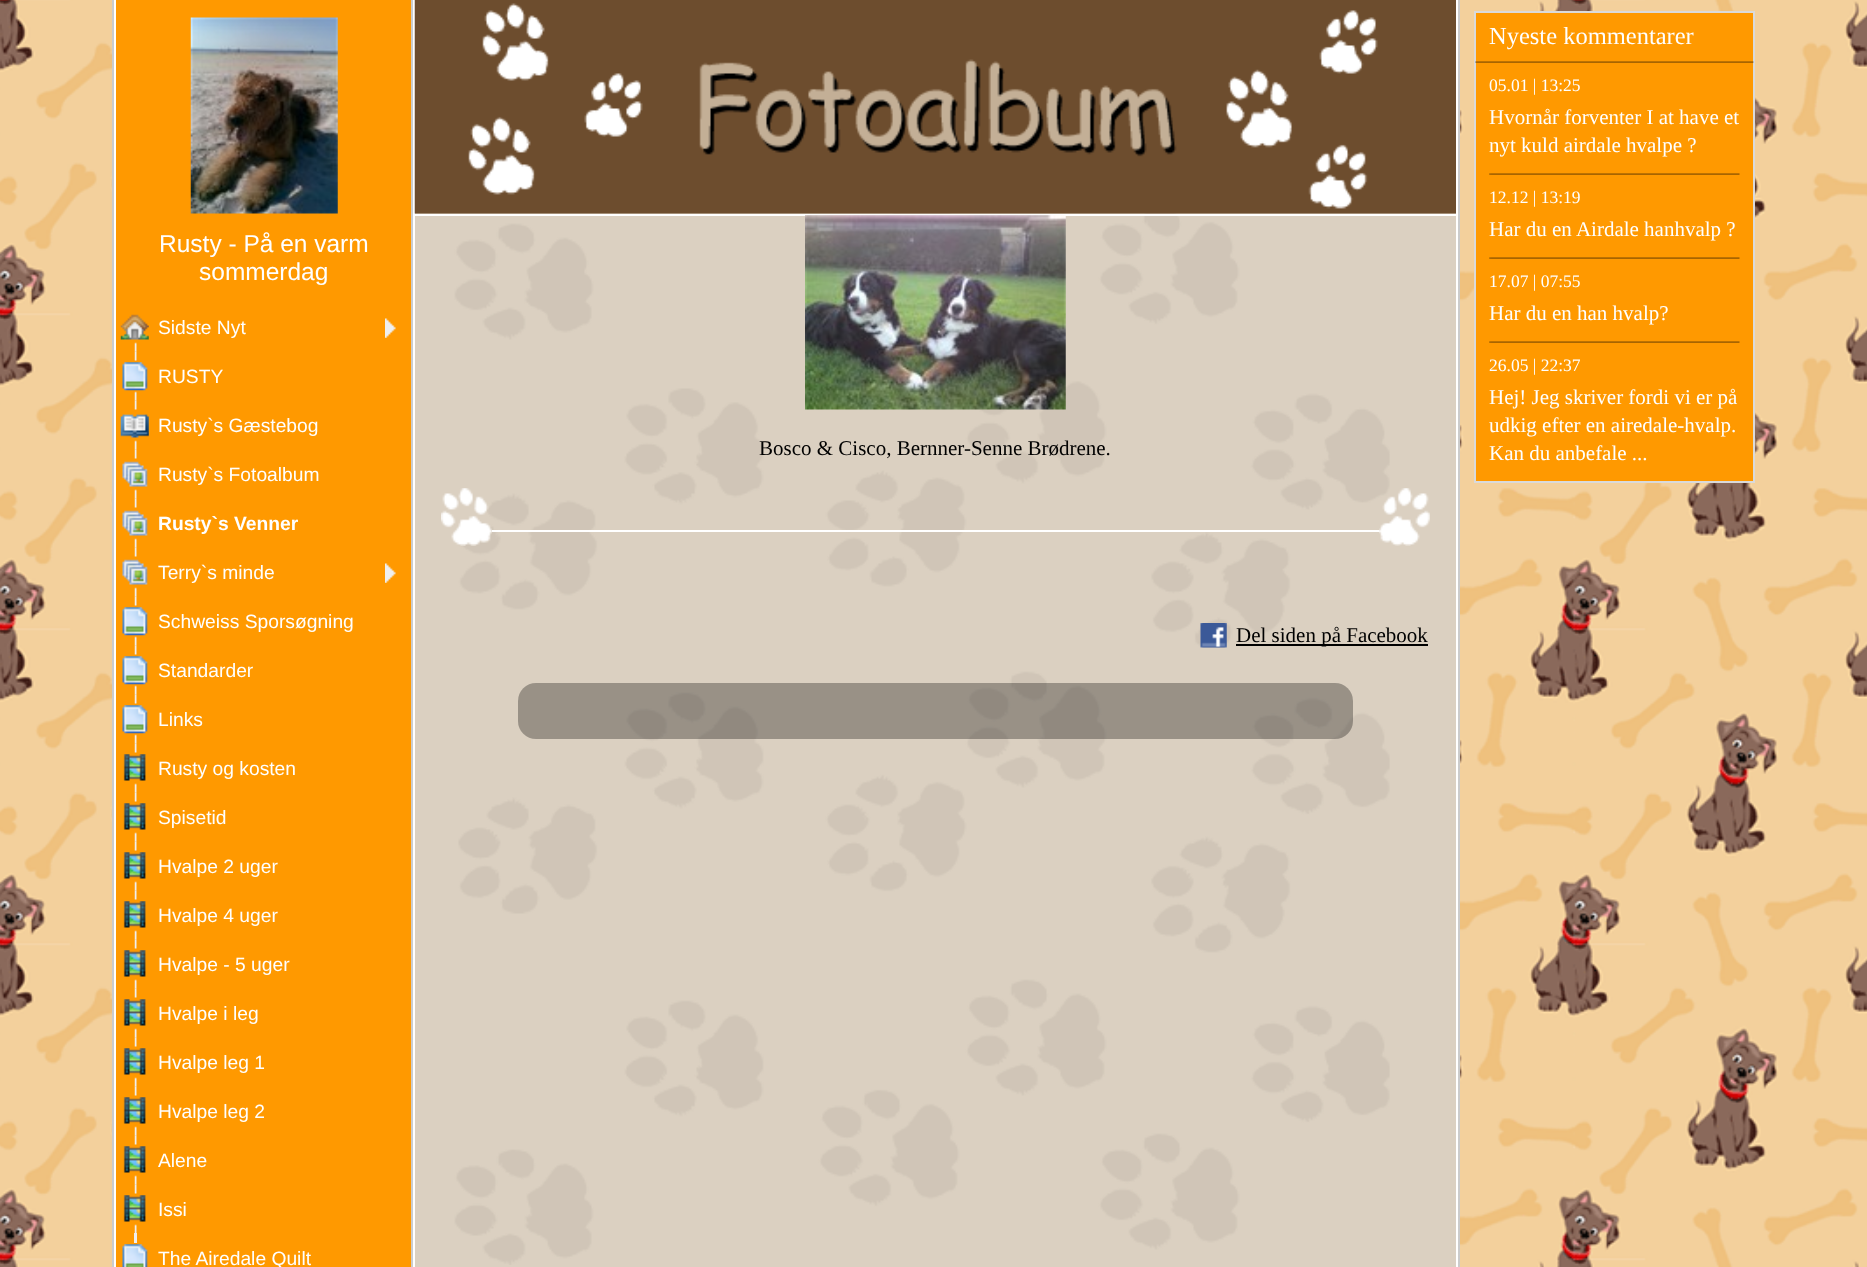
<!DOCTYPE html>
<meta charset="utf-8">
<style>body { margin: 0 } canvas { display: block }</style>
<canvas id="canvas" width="1867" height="1267"></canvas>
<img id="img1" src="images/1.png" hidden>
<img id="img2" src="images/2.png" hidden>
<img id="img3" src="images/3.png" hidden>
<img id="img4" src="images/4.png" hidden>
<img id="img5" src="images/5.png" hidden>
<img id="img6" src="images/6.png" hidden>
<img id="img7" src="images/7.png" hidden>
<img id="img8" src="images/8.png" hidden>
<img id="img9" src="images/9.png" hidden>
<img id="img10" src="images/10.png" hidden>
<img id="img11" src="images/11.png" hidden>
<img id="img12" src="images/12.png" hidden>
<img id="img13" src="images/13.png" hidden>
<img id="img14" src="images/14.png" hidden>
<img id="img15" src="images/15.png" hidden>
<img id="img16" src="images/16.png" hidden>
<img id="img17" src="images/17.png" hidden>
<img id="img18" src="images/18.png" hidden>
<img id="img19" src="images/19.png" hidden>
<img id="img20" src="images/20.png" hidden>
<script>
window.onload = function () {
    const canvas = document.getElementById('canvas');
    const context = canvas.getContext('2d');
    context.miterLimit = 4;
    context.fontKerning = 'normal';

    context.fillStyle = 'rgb(255, 255, 255)';
    context.fillRect(0, 0, 1867, 1267);
    context.drawImage(document.getElementById('img1'), 0, 0, 1867, 1267);
    context.fillRect(114, 0, 1344, 1267);
    context.fillStyle = 'rgb(204, 204, 204)';
    context.fillRect(112, 0, 2, 1267);
    context.fillStyle = 'rgb(255, 153, 0)';
    context.fillRect(116, 0, 295, 1267);
    context.drawImage(document.getElementById('img2'), 190, 17, 148, 197);
    context.drawImage(document.getElementById('img3'), 134, 342, 3, 10);
    context.drawImage(document.getElementById('img4'), 120, 314, 29, 26);
    context.drawImage(document.getElementById('img5'), 385, 318, 11, 20);
    context.drawImage(document.getElementById('img6'), 134, 351, 3, 50);
    context.drawImage(document.getElementById('img7'), 122, 362, 26, 29);
    context.drawImage(document.getElementById('img6'), 134, 400, 3, 50);
    context.drawImage(document.getElementById('img8'), 120, 414, 29, 24);
    context.drawImage(document.getElementById('img6'), 134, 449, 3, 50);
    context.drawImage(document.getElementById('img9'), 122, 461, 26, 26);
    context.drawImage(document.getElementById('img6'), 134, 498, 3, 50);
    context.drawImage(document.getElementById('img9'), 122, 510, 26, 26);
    context.drawImage(document.getElementById('img6'), 134, 547, 3, 50);
    context.drawImage(document.getElementById('img9'), 122, 559, 26, 26);
    context.drawImage(document.getElementById('img5'), 385, 563, 11, 20);
    context.drawImage(document.getElementById('img6'), 134, 596, 3, 50);
    context.drawImage(document.getElementById('img7'), 122, 607, 26, 29);
    context.drawImage(document.getElementById('img6'), 134, 645, 3, 50);
    context.drawImage(document.getElementById('img7'), 122, 656, 26, 29);
    context.drawImage(document.getElementById('img6'), 134, 694, 3, 50);
    context.drawImage(document.getElementById('img7'), 122, 705, 26, 29);
    context.drawImage(document.getElementById('img6'), 134, 743, 3, 50);
    context.drawImage(document.getElementById('img10'), 123, 754, 23, 27);
    context.drawImage(document.getElementById('img6'), 134, 792, 3, 50);
    context.drawImage(document.getElementById('img10'), 123, 803, 23, 27);
    context.drawImage(document.getElementById('img6'), 134, 841, 3, 50);
    context.drawImage(document.getElementById('img10'), 123, 852, 23, 27);
    context.drawImage(document.getElementById('img6'), 134, 890, 3, 50);
    context.drawImage(document.getElementById('img10'), 123, 901, 23, 27);
    context.drawImage(document.getElementById('img6'), 134, 939, 3, 50);
    context.drawImage(document.getElementById('img10'), 123, 950, 23, 27);
    context.drawImage(document.getElementById('img6'), 134, 988, 3, 50);
    context.drawImage(document.getElementById('img10'), 123, 999, 23, 27);
    context.drawImage(document.getElementById('img6'), 134, 1037, 3, 50);
    context.drawImage(document.getElementById('img10'), 123, 1048, 23, 27);
    context.drawImage(document.getElementById('img6'), 134, 1086, 3, 50);
    context.drawImage(document.getElementById('img10'), 123, 1097, 23, 27);
    context.drawImage(document.getElementById('img6'), 134, 1135, 3, 50);
    context.drawImage(document.getElementById('img10'), 123, 1146, 23, 27);
    context.drawImage(document.getElementById('img11'), 134, 1184, 3, 49);
    context.drawImage(document.getElementById('img10'), 123, 1195, 23, 27);
    context.fillStyle = 'rgb(239, 239, 239)';
    context.fillRect(134, 1233, 3, 10);
    context.drawImage(document.getElementById('img12'), 122, 1244, 26, 23);
    context.fillStyle = 'rgb(204, 204, 204)';
    context.fillRect(411, 0, 2, 1267);
    context.fillStyle = 'rgb(219, 208, 193)';
    context.fillRect(415, 213, 1041, 1054);
    context.drawImage(document.getElementById('img13'), 454, 213, 936, 1052);
    context.drawImage(document.getElementById('img14'), 414, 0, 1042, 214);
    context.fillStyle = 'rgb(255, 255, 255)';
    context.fillRect(415, 214, 1041, 2);
    context.drawImage(document.getElementById('img15'), 805, 215, 261, 195);
    context.drawImage(document.getElementById('img16'), 441, 488, 51, 58);
    context.fillRect(492, 530, 887, 2);
    context.drawImage(document.getElementById('img17'), 1379, 488, 51, 58);
    context.drawImage(document.getElementById('img18'), 1200, 623, 27, 25);
    context.fillStyle = 'rgb(0, 0, 0)';
    context.fillRect(1236, 644, 192, 2);
    context.fillStyle = 'rgba(0, 0, 0, 0.3)';
    context.beginPath();
    context.roundRect(518, 683, 835, 56, 18);
    context.fill();
    context.fillStyle = 'rgb(204, 204, 204)';
    context.fillRect(1458, 0, 2, 1267);
    context.fillStyle = 'rgb(255, 153, 0)';
    context.beginPath();
    context.rect(1475, 12, 279, 470);
    context.fill();
    context.strokeStyle = 'rgb(218, 218, 218)';
    context.lineWidth = 2;
    context.stroke();
    context.drawImage(document.getElementById('img19'), 1475, 61, 279, 2);
    context.drawImage(document.getElementById('img20'), 1489, 173, 251, 2);
    context.drawImage(document.getElementById('img20'), 1489, 257, 251, 2);
    context.drawImage(document.getElementById('img20'), 1489, 341, 251, 2);
    context.font = '24.5px Liberation Sans';
    context.fillStyle = 'rgb(255, 255, 255)';
    context.fillText('Rusty - På en varm', 159, 252);
    context.fillText('sommerdag', 199, 280);
    context.font = '19.25px Liberation Sans';
    context.fillText('Sidste Nyt', 158, 334);
    context.fillText('RUSTY', 158, 383);
    context.fillText('Rusty`s Gæstebog', 158, 432);
    context.fillText('Rusty`s Fotoalbum', 158, 481);
    context.font = 'bold 19.25px Liberation Sans';
    context.fillText('Rusty`s Venner', 158, 530);
    context.font = '19.25px Liberation Sans';
    context.fillText('Terry`s minde', 158, 579);
    context.fillText('Schweiss Sporsøgning', 158, 628);
    context.fillText('Standarder', 158, 677);
    context.fillText('Links', 158, 726);
    context.fillText('Rusty og kosten', 158, 775);
    context.fillText('Spisetid', 158, 824);
    context.fillText('Hvalpe 2 uger', 158, 873);
    context.fillText('Hvalpe 4 uger', 158, 922);
    context.fillText('Hvalpe - 5 uger', 158, 971);
    context.fillText('Hvalpe i leg', 158, 1020);
    context.fillText('Hvalpe leg 1', 158, 1069);
    context.fillText('Hvalpe leg 2', 158, 1118);
    context.fillText('Alene', 158, 1167);
    context.fillText('Issi', 158, 1216);
    context.fillText('The Airedale Quilt', 158, 1265);
    context.font = '21px Liberation Serif';
    context.fillStyle = 'rgb(0, 0, 0)';
    context.fillText('Bosco & Cisco, Bernner-Senne Brødrene.', 759, 455);
    context.fillText('Del siden på Facebook', 1236, 642);
    context.font = '24.5px Liberation Serif';
    context.fillStyle = 'rgb(255, 255, 255)';
    context.fillText('Nyeste kommentarer', 1489, 44);
    context.font = '17.5px Liberation Serif';
    context.fillText('05.01 | 13:25', 1489, 91);
    context.font = '21px Liberation Serif';
    context.fillText('Hvornår forventer I at have et', 1489, 124);
    context.fillText('nyt kuld airdale hvalpe ?', 1489, 152);
    context.font = '17.5px Liberation Serif';
    context.fillText('12.12 | 13:19', 1489, 203);
    context.font = '21px Liberation Serif';
    context.fillText('Har du en Airdale hanhvalp ?', 1489, 236);
    context.font = '17.5px Liberation Serif';
    context.fillText('17.07 | 07:55', 1489, 287);
    context.font = '21px Liberation Serif';
    context.fillText('Har du en han hvalp?', 1489, 320);
    context.font = '17.5px Liberation Serif';
    context.fillText('26.05 | 22:37', 1489, 371);
    context.font = '21px Liberation Serif';
    context.fillText('Hej! Jeg skriver fordi vi er på', 1489, 404);
    context.fillText('udkig efter en airedale-hvalp.', 1489, 432);
    context.fillText('Kan du anbefale ...', 1489, 460);
};
</script>
